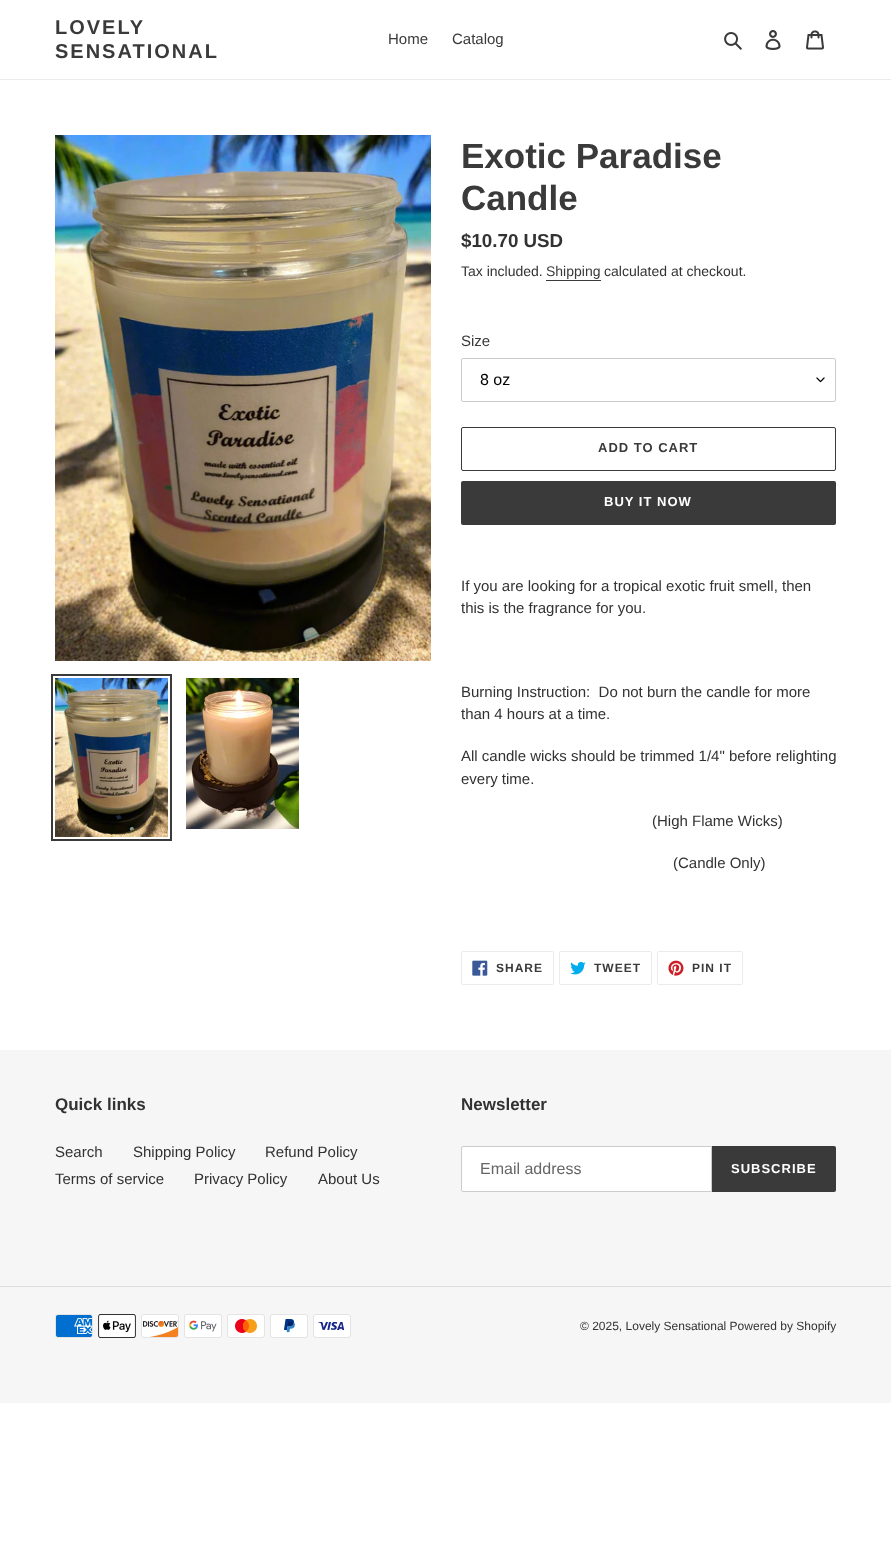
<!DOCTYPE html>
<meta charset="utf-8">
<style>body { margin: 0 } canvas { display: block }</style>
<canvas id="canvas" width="891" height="1548"></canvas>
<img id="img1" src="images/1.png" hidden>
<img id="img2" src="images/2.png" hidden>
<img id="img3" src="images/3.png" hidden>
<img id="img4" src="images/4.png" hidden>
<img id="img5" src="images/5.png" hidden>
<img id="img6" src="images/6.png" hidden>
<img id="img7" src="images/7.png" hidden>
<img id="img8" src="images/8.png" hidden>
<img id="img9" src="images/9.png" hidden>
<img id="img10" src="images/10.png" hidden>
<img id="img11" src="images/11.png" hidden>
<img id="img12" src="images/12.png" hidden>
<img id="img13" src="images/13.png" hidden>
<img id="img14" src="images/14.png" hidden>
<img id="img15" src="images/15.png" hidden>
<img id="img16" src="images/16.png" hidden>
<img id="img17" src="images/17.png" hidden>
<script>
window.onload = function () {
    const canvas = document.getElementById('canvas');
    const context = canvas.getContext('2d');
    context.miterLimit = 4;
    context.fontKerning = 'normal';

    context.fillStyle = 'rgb(255, 255, 255)';
    context.fillRect(0, 0, 891, 1548);
    context.fillStyle = 'rgb(235, 235, 235)';
    context.fillRect(0, 79, 891, 1);
    context.drawImage(document.getElementById('img1'), 724, 32, 18, 18);
    context.drawImage(document.getElementById('img2'), 765, 30, 16, 20);
    context.drawImage(document.getElementById('img3'), 806, 30, 18, 20);
    context.drawImage(document.getElementById('img4'), 55, 135, 376, 526);
    context.strokeStyle = 'rgb(58, 58, 58)';
    context.lineWidth = 2;
    context.strokeRect(52, 675, 119, 165);
    context.drawImage(document.getElementById('img5'), 55, 678, 113, 159);
    context.drawImage(document.getElementById('img6'), 186, 678, 113, 151);
    context.fillStyle = 'rgb(58, 58, 58)';
    context.fillRect(546, 280, 55, 1);
    context.drawImage(document.getElementById('img7'), 816, 377, 9, 6);
    context.beginPath();
    context.roundRect(461.5, 358.5, 374, 43, 1.5);
    context.strokeStyle = 'rgb(204, 204, 204)';
    context.lineWidth = 1;
    context.stroke();
    context.beginPath();
    context.roundRect(461.5, 427.5, 374, 43, 1.5);
    context.strokeStyle = 'rgb(58, 58, 58)';
    context.stroke();
    context.beginPath();
    context.roundRect(461, 481, 375, 44, 2);
    context.fill();
    context.beginPath();
    context.roundRect(461.5, 951.5, 92, 33, 1.5);
    context.strokeStyle = 'rgb(235, 235, 235)';
    context.stroke();
    context.drawImage(document.getElementById('img8'), 472, 960, 16, 16);
    context.beginPath();
    context.roundRect(559.5, 951.5, 92, 33, 1.5);
    context.stroke();
    context.drawImage(document.getElementById('img9'), 570, 961, 16, 14);
    context.beginPath();
    context.roundRect(657.5, 951.5, 85, 33, 1.5);
    context.stroke();
    context.drawImage(document.getElementById('img10'), 668, 960, 16, 16);
    context.fillStyle = 'rgb(246, 246, 246)';
    context.fillRect(0, 1050, 891, 353);
    context.fillStyle = 'rgb(255, 255, 255)';
    context.beginPath();
    context.roundRect(461.5, 1146.5, 250, 45, [1.5, 0, 0, 1.5]);
    context.fill();
    context.strokeStyle = 'rgb(204, 204, 204)';
    context.stroke();
    context.fillStyle = 'rgb(58, 58, 58)';
    context.beginPath();
    context.roundRect(712, 1146, 124, 46, [0, 2, 2, 0]);
    context.fill();
    context.fillStyle = 'rgb(221, 221, 221)';
    context.fillRect(0, 1286, 891, 1);
    context.drawImage(document.getElementById('img11'), 55, 1314, 38, 24);
    context.drawImage(document.getElementById('img12'), 98, 1314, 38, 24);
    context.drawImage(document.getElementById('img13'), 141, 1314, 38, 24);
    context.drawImage(document.getElementById('img14'), 184, 1314, 38, 24);
    context.drawImage(document.getElementById('img15'), 227, 1314, 38, 24);
    context.drawImage(document.getElementById('img16'), 270, 1314, 38, 24);
    context.drawImage(document.getElementById('img17'), 313, 1314, 38, 24);
    context.letterSpacing = '2px';
    context.font = 'bold 20px Liberation Sans';
    context.fillStyle = 'rgb(58, 58, 58)';
    context.fillText('LOVELY', 55, 34);
    context.fillText('SENSATIONAL', 55, 58);
    context.letterSpacing = '0px';
    context.font = '15px Liberation Sans';
    context.fillText('Home', 388, 44);
    context.fillText('Catalog', 452, 44);
    context.font = 'bold 35px Liberation Sans';
    context.fillText('Exotic Paradise', 461, 168);
    context.fillText('Candle', 461, 210);
    context.font = 'bold 18.75px Liberation Sans';
    context.fillStyle = 'rgb(51, 50, 50)';
    context.fillText('$10.70 USD', 461, 247);
    context.font = '14px Liberation Sans';
    context.fillText('Tax included.', 461, 276);
    context.fillStyle = 'rgb(58, 58, 58)';
    context.fillText('Shipping', 546, 276);
    context.fillStyle = 'rgb(51, 50, 50)';
    context.fillText('calculated at checkout.', 604, 276);
    context.font = '15px Liberation Sans';
    context.fillStyle = 'rgb(58, 58, 58)';
    context.fillText('Size', 461, 346);
    context.font = '16px Liberation Sans';
    context.fillStyle = 'rgb(0, 0, 0)';
    context.fillText('8 oz', 480, 385);
    context.letterSpacing = '1px';
    context.font = 'bold 13px Liberation Sans';
    context.fillStyle = 'rgb(58, 58, 58)';
    context.fillText('ADD TO CART', 598, 452);
    context.fillStyle = 'rgb(255, 255, 255)';
    context.fillText('BUY IT NOW', 604, 506);
    context.letterSpacing = '0px';
    context.font = '15px Liberation Sans';
    context.fillStyle = 'rgb(51, 50, 50)';
    context.fillText('If you are looking for a tropical exotic fruit smell, then', 461, 591);
    context.fillText('this is the fragrance for you.', 461, 613);
    context.fillText('Burning Instruction:  Do not burn the candle for more', 461, 697);
    context.fillText('than 4 hours at a time.', 461, 719);
    context.fillText('All candle wicks should be trimmed 1/4" before relighting', 461, 761);
    context.fillText('every time.', 461, 784);
    context.fillText('(High Flame Wicks)', 652, 826);
    context.fillText('(Candle Only)', 673, 868);
    context.letterSpacing = '1px';
    context.font = 'bold 12px Liberation Sans';
    context.fillStyle = 'rgb(58, 58, 58)';
    context.fillText('SHARE', 496, 972);
    context.fillText('TWEET', 594, 972);
    context.fillText('PIN IT', 692, 972);
    context.letterSpacing = '0px';
    context.font = 'bold 17px Liberation Sans';
    context.fillStyle = 'rgb(51, 50, 50)';
    context.fillText('Quick links', 55, 1110);
    context.font = '15px Liberation Sans';
    context.fillText('Search', 55, 1157);
    context.fillText('Shipping Policy', 133, 1157);
    context.fillText('Refund Policy', 265, 1157);
    context.fillText('Terms of service', 55, 1184);
    context.fillText('Privacy Policy', 194, 1184);
    context.fillText('About Us', 318, 1184);
    context.font = 'bold 17px Liberation Sans';
    context.fillText('Newsletter', 461, 1110);
    context.font = '16px Liberation Sans';
    context.fillStyle = 'rgb(102, 102, 102)';
    context.fillText('Email address', 480, 1174);
    context.letterSpacing = '1px';
    context.font = 'bold 13px Liberation Sans';
    context.fillStyle = 'rgb(255, 255, 255)';
    context.fillText('SUBSCRIBE', 731, 1173);
    context.letterSpacing = '0px';
    context.font = '12px Liberation Sans';
    context.fillStyle = 'rgb(51, 50, 50)';
    context.fillText('© 2025, Lovely Sensational Powered by Shopify', 580, 1330);
};
</script>
